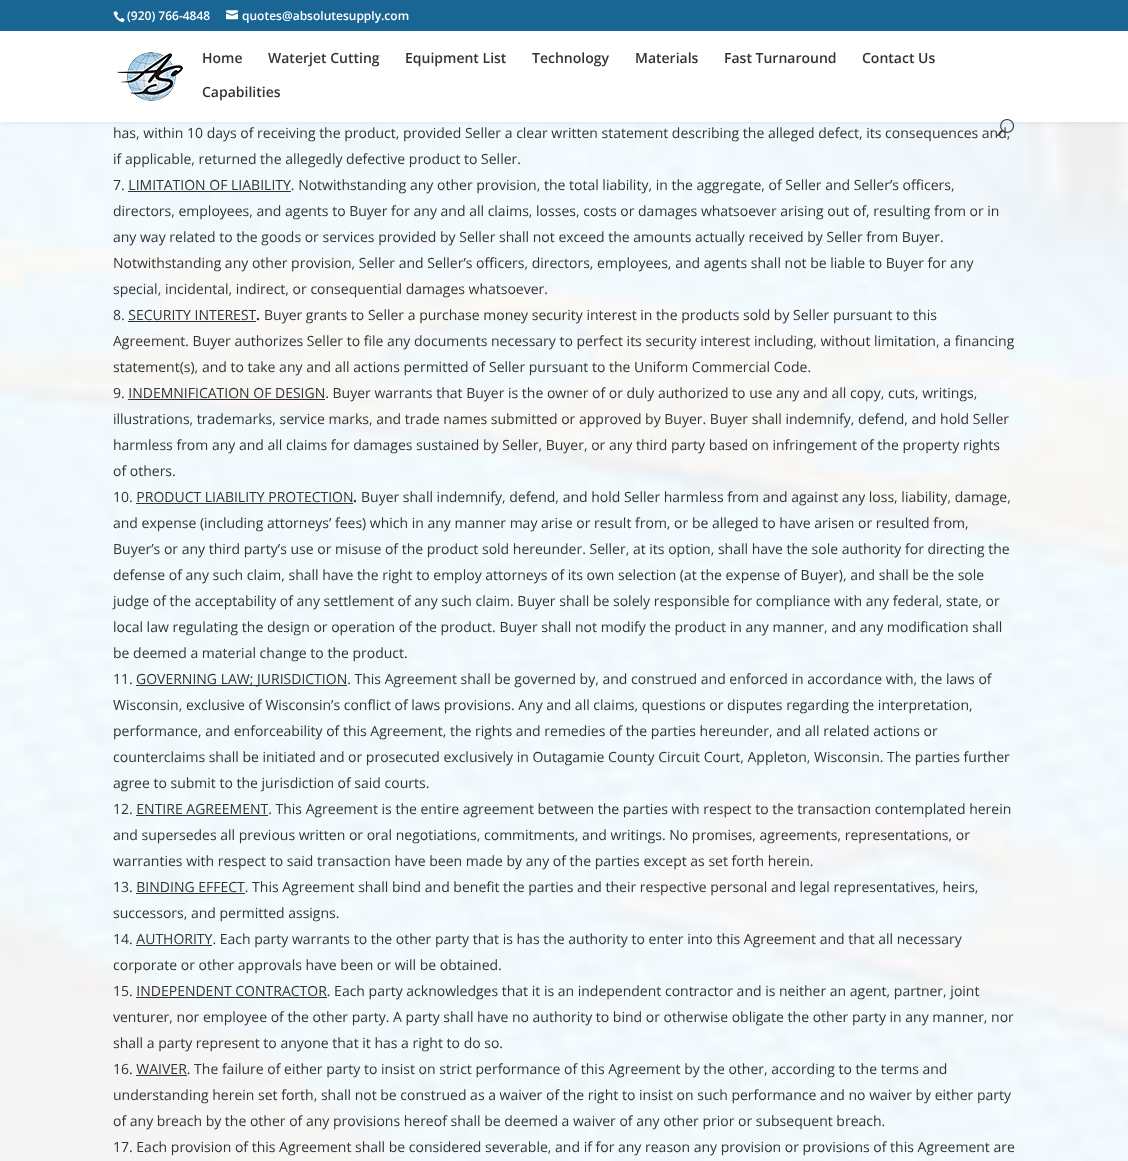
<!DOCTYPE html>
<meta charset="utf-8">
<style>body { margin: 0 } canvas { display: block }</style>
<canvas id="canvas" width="1128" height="1161"></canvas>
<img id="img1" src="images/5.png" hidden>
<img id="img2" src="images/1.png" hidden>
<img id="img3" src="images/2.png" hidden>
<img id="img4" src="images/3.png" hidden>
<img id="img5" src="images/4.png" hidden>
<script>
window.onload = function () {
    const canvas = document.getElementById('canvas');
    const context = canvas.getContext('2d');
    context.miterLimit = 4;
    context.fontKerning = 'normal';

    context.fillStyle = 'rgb(255, 255, 255)';
    context.fillRect(0, 0, 1128, 1161);
    context.drawImage(document.getElementById('img1'), 0, 122, 1128, 1039);
    context.fillStyle = 'rgba(0, 0, 0, 0.1)';
    context.filter = 'blur(3.5px)';
    context.beginPath();
    context.rect(0, 31, 1128, 91);
    context.fill();
    context.filter = 'none';
    context.fillStyle = 'rgb(25, 101, 148)';
    context.fillRect(0, 0, 1128, 31);
    context.drawImage(document.getElementById('img2'), 113, 11, 12, 12);
    context.drawImage(document.getElementById('img3'), 226, 10, 12, 10);
    context.fillStyle = 'rgb(255, 255, 255)';
    context.fillRect(0, 31, 1128, 91);
    context.drawImage(document.getElementById('img4'), 117, 52, 66, 49);
    context.fillStyle = 'rgb(51, 51, 51)';
    context.fillRect(128, 191, 163, 1);
    context.fillRect(128, 321, 128, 1);
    context.fillRect(128, 399, 197, 1);
    context.fillRect(136, 503, 217, 1);
    context.fillRect(136, 685, 211, 1);
    context.fillRect(136, 815, 132, 1);
    context.fillRect(136, 893, 109, 1);
    context.fillRect(136, 945, 76, 1);
    context.fillRect(136, 997, 191, 1);
    context.fillRect(136, 1075, 51, 1);
    context.font = '600 12px Open Sans';
    context.fillStyle = 'rgb(255, 255, 255)';
    context.fillText('(920) 766-4848', 127, 20);
    context.fillText('quotes@absolutesupply.com', 242, 20);
    context.font = '600 14px Open Sans';
    context.fillStyle = 'rgb(51, 51, 51)';
    context.fillText('Home', 202, 63);
    context.fillText('Waterjet Cutting', 268, 63);
    context.fillText('Equipment List', 405, 63);
    context.fillText('Technology', 532, 63);
    context.fillText('Materials', 635, 63);
    context.fillText('Fast Turnaround', 724, 63);
    context.fillText('Contact Us', 862, 63);
    context.fillText('Capabilities', 202, 97);
    context.font = '14px Open Sans';
    context.fillText('has, within 10 days of receiving the product, provided Seller a clear written statement describing the alleged defect, its consequences and,', 113, 138);
    context.drawImage(document.getElementById('img5'), 997, 119, 17, 18);
    context.fillText('if applicable, returned the allegedly defective product to Seller.', 113, 164);
    context.fillText('7. LIMITATION OF LIABILITY. Notwithstanding any other provision, the total liability, in the aggregate, of Seller and Seller’s officers,', 113, 190);
    context.fillText('directors, employees, and agents to Buyer for any and all claims, losses, costs or damages whatsoever arising out of, resulting from or in', 113, 216);
    context.fillText('any way related to the goods or services provided by Seller shall not exceed the amounts actually received by Seller from Buyer.', 113, 242);
    context.fillText('Notwithstanding any other provision, Seller and Seller’s officers, directors, employees, and agents shall not be liable to Buyer for any', 113, 268);
    context.fillText('special, incidental, indirect, or consequential damages whatsoever.', 113, 294);
    context.fillText('8. SECURITY INTEREST', 113, 320);
    context.font = 'bold 14px Open Sans';
    context.fillText('.', 256, 320);
    context.font = '14px Open Sans';
    context.fillText('Buyer grants to Seller a purchase money security interest in the products sold by Seller pursuant to this', 264, 320);
    context.fillText('Agreement. Buyer authorizes Seller to file any documents necessary to perfect its security interest including, without limitation, a financing', 113, 346);
    context.fillText('statement(s), and to take any and all actions permitted of Seller pursuant to the Uniform Commercial Code.', 113, 372);
    context.fillText('9. INDEMNIFICATION OF DESIGN. Buyer warrants that Buyer is the owner of or duly authorized to use any and all copy, cuts, writings,', 113, 398);
    context.fillText('illustrations, trademarks, service marks, and trade names submitted or approved by Buyer. Buyer shall indemnify, defend, and hold Seller', 113, 424);
    context.fillText('harmless from any and all claims for damages sustained by Seller, Buyer, or any third party based on infringement of the property rights', 113, 450);
    context.fillText('of others.', 113, 476);
    context.fillText('10. PRODUCT LIABILITY PROTECTION', 113, 502);
    context.font = 'bold 14px Open Sans';
    context.fillText('.', 353, 502);
    context.font = '14px Open Sans';
    context.fillText('Buyer shall indemnify, defend, and hold Seller harmless from and against any loss, liability, damage,', 361, 502);
    context.fillText('and expense (including attorneys’ fees) which in any manner may arise or result from, or be alleged to have arisen or resulted from,', 113, 528);
    context.fillText('Buyer’s or any third party’s use or misuse of the product sold hereunder. Seller, at its option, shall have the sole authority for directing the', 113, 554);
    context.fillText('defense of any such claim, shall have the right to employ attorneys of its own selection (at the expense of Buyer), and shall be the sole', 113, 580);
    context.fillText('judge of the acceptability of any settlement of any such claim. Buyer shall be solely responsible for compliance with any federal, state, or', 113, 606);
    context.fillText('local law regulating the design or operation of the product. Buyer shall not modify the product in any manner, and any modification shall', 113, 632);
    context.fillText('be deemed a material change to the product.', 113, 658);
    context.fillText('11.', 113, 684);
    context.fillText('GOVERNING LAW; JURISDICTION. This Agreement shall be governed by, and construed and enforced in accordance with, the laws of', 136, 684);
    context.fillText('Wisconsin, exclusive of Wisconsin’s conflict of laws provisions. Any and all claims, questions or disputes regarding the interpretation,', 113, 710);
    context.fillText('performance, and enforceability of this Agreement, the rights and remedies of the parties hereunder, and all related actions or', 113, 736);
    context.fillText('counterclaims shall be initiated and or prosecuted exclusively in Outagamie County Circuit Court, Appleton, Wisconsin. The parties further', 113, 762);
    context.fillText('agree to submit to the jurisdiction of said courts.', 113, 788);
    context.fillText('12. ENTIRE AGREEMENT. This Agreement is the entire agreement between the parties with respect to the transaction contemplated herein', 113, 814);
    context.fillText('and supersedes all previous written or oral negotiations, commitments, and writings. No promises, agreements, representations, or', 113, 840);
    context.fillText('warranties with respect to said transaction have been made by any of the parties except as set forth herein.', 113, 866);
    context.fillText('13. BINDING EFFECT. This Agreement shall bind and benefit the parties and their respective personal and legal representatives, heirs,', 113, 892);
    context.fillText('successors, and permitted assigns.', 113, 918);
    context.fillText('14. AUTHORITY. Each party warrants to the other party that is has the authority to enter into this Agreement and that all necessary', 113, 944);
    context.fillText('corporate or other approvals have been or will be obtained.', 113, 970);
    context.fillText('15. INDEPENDENT CONTRACTOR. Each party acknowledges that it is an independent contractor and is neither an agent, partner, joint', 113, 996);
    context.fillText('venturer, nor employee of the other party. A party shall have no authority to bind or otherwise obligate the other party in any manner, nor', 113, 1022);
    context.fillText('shall a party represent to anyone that it has a right to do so.', 113, 1048);
    context.fillText('16. WAIVER. The failure of either party to insist on strict performance of this Agreement by the other, according to the terms and', 113, 1074);
    context.fillText('understanding herein set forth, shall not be construed as a waiver of the right to insist on such performance and no waiver by either party', 113, 1100);
    context.fillText('of any breach by the other of any provisions hereof shall be deemed a waiver of any other prior or subsequent breach.', 113, 1126);
    context.fillText('17. Each provision of this Agreement shall be considered severable, and if for any reason any provision or provisions of this Agreement are', 113, 1152);
};
</script>
